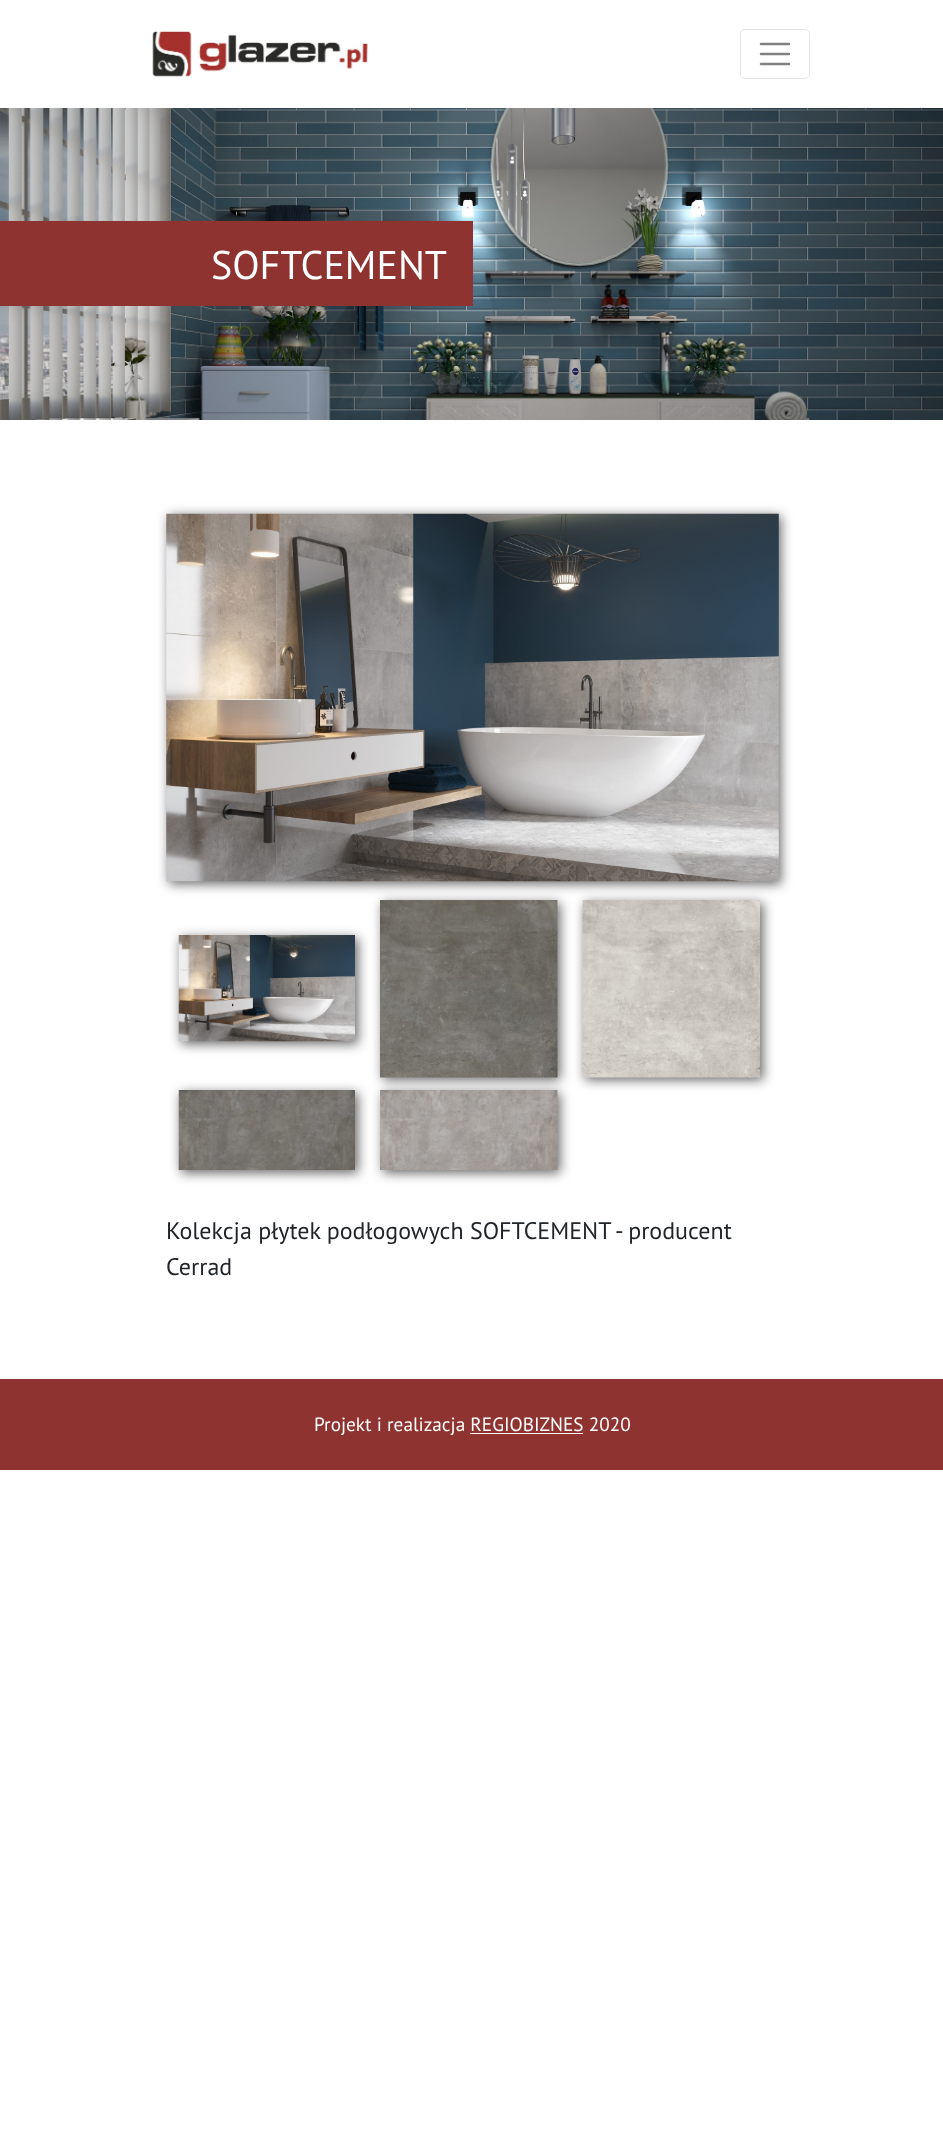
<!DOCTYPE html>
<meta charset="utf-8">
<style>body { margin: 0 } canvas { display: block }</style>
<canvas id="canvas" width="943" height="2153"></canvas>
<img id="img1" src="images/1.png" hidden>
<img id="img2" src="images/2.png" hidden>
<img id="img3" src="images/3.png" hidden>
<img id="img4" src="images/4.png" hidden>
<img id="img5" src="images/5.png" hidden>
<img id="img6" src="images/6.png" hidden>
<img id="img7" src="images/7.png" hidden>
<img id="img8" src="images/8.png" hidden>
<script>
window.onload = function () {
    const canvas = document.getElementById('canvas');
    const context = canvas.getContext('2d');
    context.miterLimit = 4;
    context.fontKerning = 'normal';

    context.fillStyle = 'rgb(255, 255, 255)';
    context.fillRect(0, 0, 943, 2153);
    context.drawImage(document.getElementById('img1'), 152, 31, 216, 46);
    context.beginPath();
    context.roundRect(740.5, 29.5, 69, 49, 4.5);
    context.strokeStyle = 'rgb(230, 230, 230)';
    context.stroke();
    context.beginPath();
    context.moveTo(761, 44);
    context.lineTo(789, 44);
    context.moveTo(761, 54);
    context.lineTo(789, 54);
    context.moveTo(761, 64);
    context.lineTo(789, 64);
    context.strokeStyle = 'rgb(128, 128, 128)';
    context.lineWidth = 2.5;
    context.lineCap = 'round';
    context.stroke();
    context.drawImage(document.getElementById('img2'), 0, 108, 943, 312);
    context.fillStyle = 'rgb(142, 51, 48)';
    context.fillRect(0, 221, 473, 85);
    context.fillStyle = 'rgb(102, 102, 102)';
    context.filter = 'blur(6px)';
    context.beginPath();
    context.rect(169, 516, 612, 368);
    context.fill();
    context.filter = 'none';
    context.drawImage(document.getElementById('img3'), 166, 513, 613, 369);
    context.filter = 'blur(6px)';
    context.beginPath();
    context.rect(383, 903, 177, 177);
    context.fill();
    context.filter = 'none';
    context.filter = 'blur(6px)';
    context.beginPath();
    context.rect(585, 903, 178, 177);
    context.fill();
    context.filter = 'none';
    context.filter = 'blur(6px)';
    context.beginPath();
    context.rect(181, 938, 177, 106);
    context.fill();
    context.filter = 'none';
    context.drawImage(document.getElementById('img4'), 380, 900, 178, 178);
    context.drawImage(document.getElementById('img5'), 582, 900, 178, 178);
    context.drawImage(document.getElementById('img6'), 178, 935, 177, 107);
    context.filter = 'blur(6px)';
    context.beginPath();
    context.rect(181, 1093, 177, 80);
    context.fill();
    context.filter = 'none';
    context.filter = 'blur(6px)';
    context.beginPath();
    context.rect(383, 1093, 177, 80);
    context.fill();
    context.filter = 'none';
    context.drawImage(document.getElementById('img7'), 178, 1090, 177, 80);
    context.drawImage(document.getElementById('img8'), 380, 1090, 178, 80);
    context.fillStyle = 'rgb(142, 51, 48)';
    context.fillRect(0, 1379, 943, 91);
    context.fillStyle = 'rgb(255, 255, 255)';
    context.fillRect(470, 1433, 113, 1);
    context.font = '40px PT Sans';
    context.fillText('SOFTCEMENT', 211, 279);
    context.font = '24px PT Sans';
    context.fillStyle = 'rgb(33, 37, 41)';
    context.fillText('Kolekcja płytek podłogowych SOFTCEMENT - producent', 166, 1239);
    context.fillText('Cerrad', 166, 1275);
    context.font = '19.25px PT Sans';
    context.fillStyle = 'rgb(255, 255, 255)';
    context.fillText('Projekt i realizacja REGIOBIZNES 2020', 314, 1431);
};
</script>
